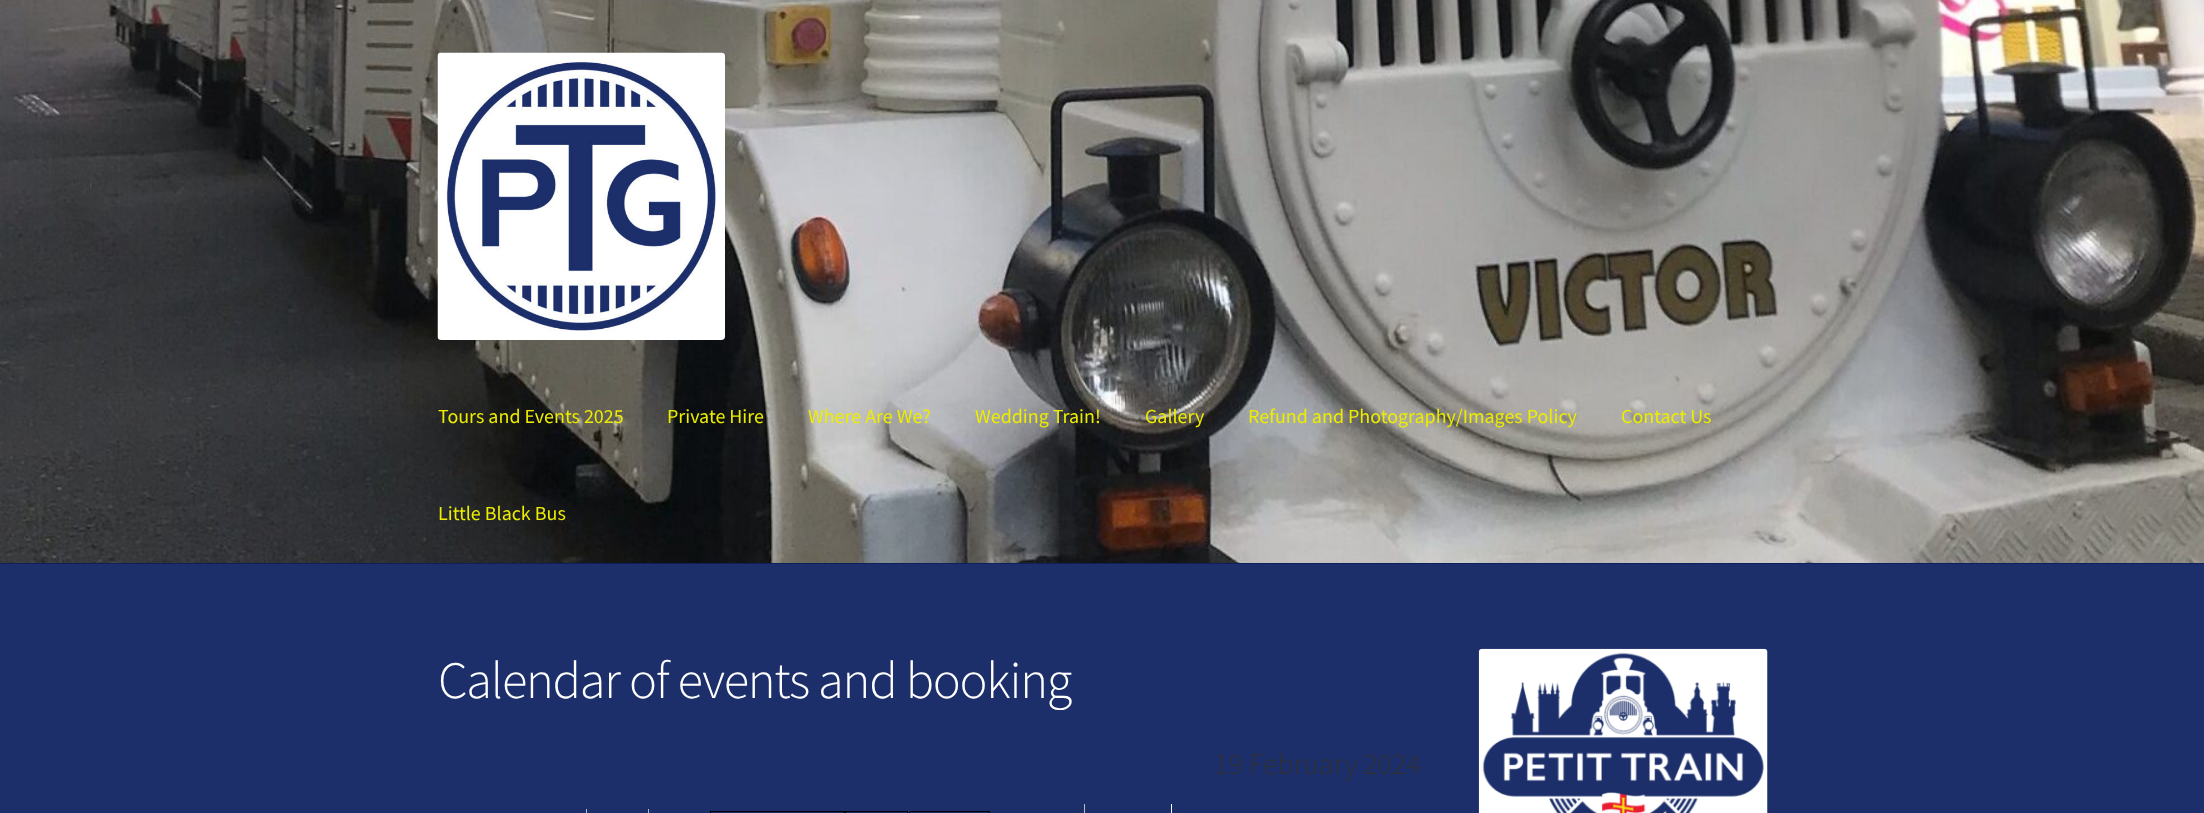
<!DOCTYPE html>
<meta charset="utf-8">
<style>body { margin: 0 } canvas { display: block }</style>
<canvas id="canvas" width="2204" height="813"></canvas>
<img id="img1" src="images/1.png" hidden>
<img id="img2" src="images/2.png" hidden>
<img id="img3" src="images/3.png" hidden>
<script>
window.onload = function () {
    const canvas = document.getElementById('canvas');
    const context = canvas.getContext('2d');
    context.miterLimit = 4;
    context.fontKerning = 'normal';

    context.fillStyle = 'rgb(28, 47, 106)';
    context.fillRect(0, 0, 2204, 813);
    context.drawImage(document.getElementById('img1'), 0, 0, 2204, 563);
    context.fillStyle = 'rgb(13, 32, 91)';
    context.fillRect(0, 563, 2204, 1);
    context.drawImage(document.getElementById('img2'), 437, 52, 288, 288);
    context.fillStyle = 'rgb(187, 187, 187)';
    context.fillRect(586, 809, 1, 4);
    context.fillRect(648, 809, 1, 4);
    context.strokeStyle = 'rgb(0, 0, 0)';
    context.strokeRect(710.5, 811.5, 134, 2);
    context.strokeRect(845.5, 811.5, 62, 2);
    context.beginPath();
    context.moveTo(912, 811.5);
    context.lineTo(989.5, 811.5);
    context.lineTo(989.5, 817.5);
    context.lineTo(912, 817.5);
    context.bezierCurveTo(910, 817.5, 908.5, 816, 908.5, 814);
    context.lineTo(908.5, 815);
    context.bezierCurveTo(908.5, 813, 910, 811.5, 912, 811.5);
    context.closePath();
    context.stroke();
    context.fillRect(1084, 804, 1, 9);
    context.fillStyle = 'rgb(255, 255, 255)';
    context.fillRect(1171, 804, 1, 9);
    context.drawImage(document.getElementById('img3'), 1478, 648, 290, 165);
    context.font = '20px Source Sans Pro';
    context.fillStyle = 'rgb(237, 237, 0)';
    context.fillText('Tours and Events 2025', 438, 423);
    context.fillText('Private Hire', 667, 423);
    context.fillText('Where Are We?', 808, 423);
    context.fillText('Wedding Train!', 975, 423);
    context.fillText('Gallery', 1145, 423);
    context.fillText('Refund and Photography/Images Policy', 1248, 423);
    context.fillText('Contact Us', 1621, 423);
    context.fillText('Little Black Bus', 438, 520);
    context.letterSpacing = '-1.25px';
    context.font = '300 52.4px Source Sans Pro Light';
    context.fillStyle = 'rgb(255, 255, 255)';
    context.fillText('Calendar of events and booking', 438, 698);
    context.letterSpacing = '0px';
    context.font = '300 30px Source Sans Pro Light';
    context.fillStyle = 'rgb(49, 50, 51)';
    context.fillText('19 February 2024', 1214, 774);
};
</script>
